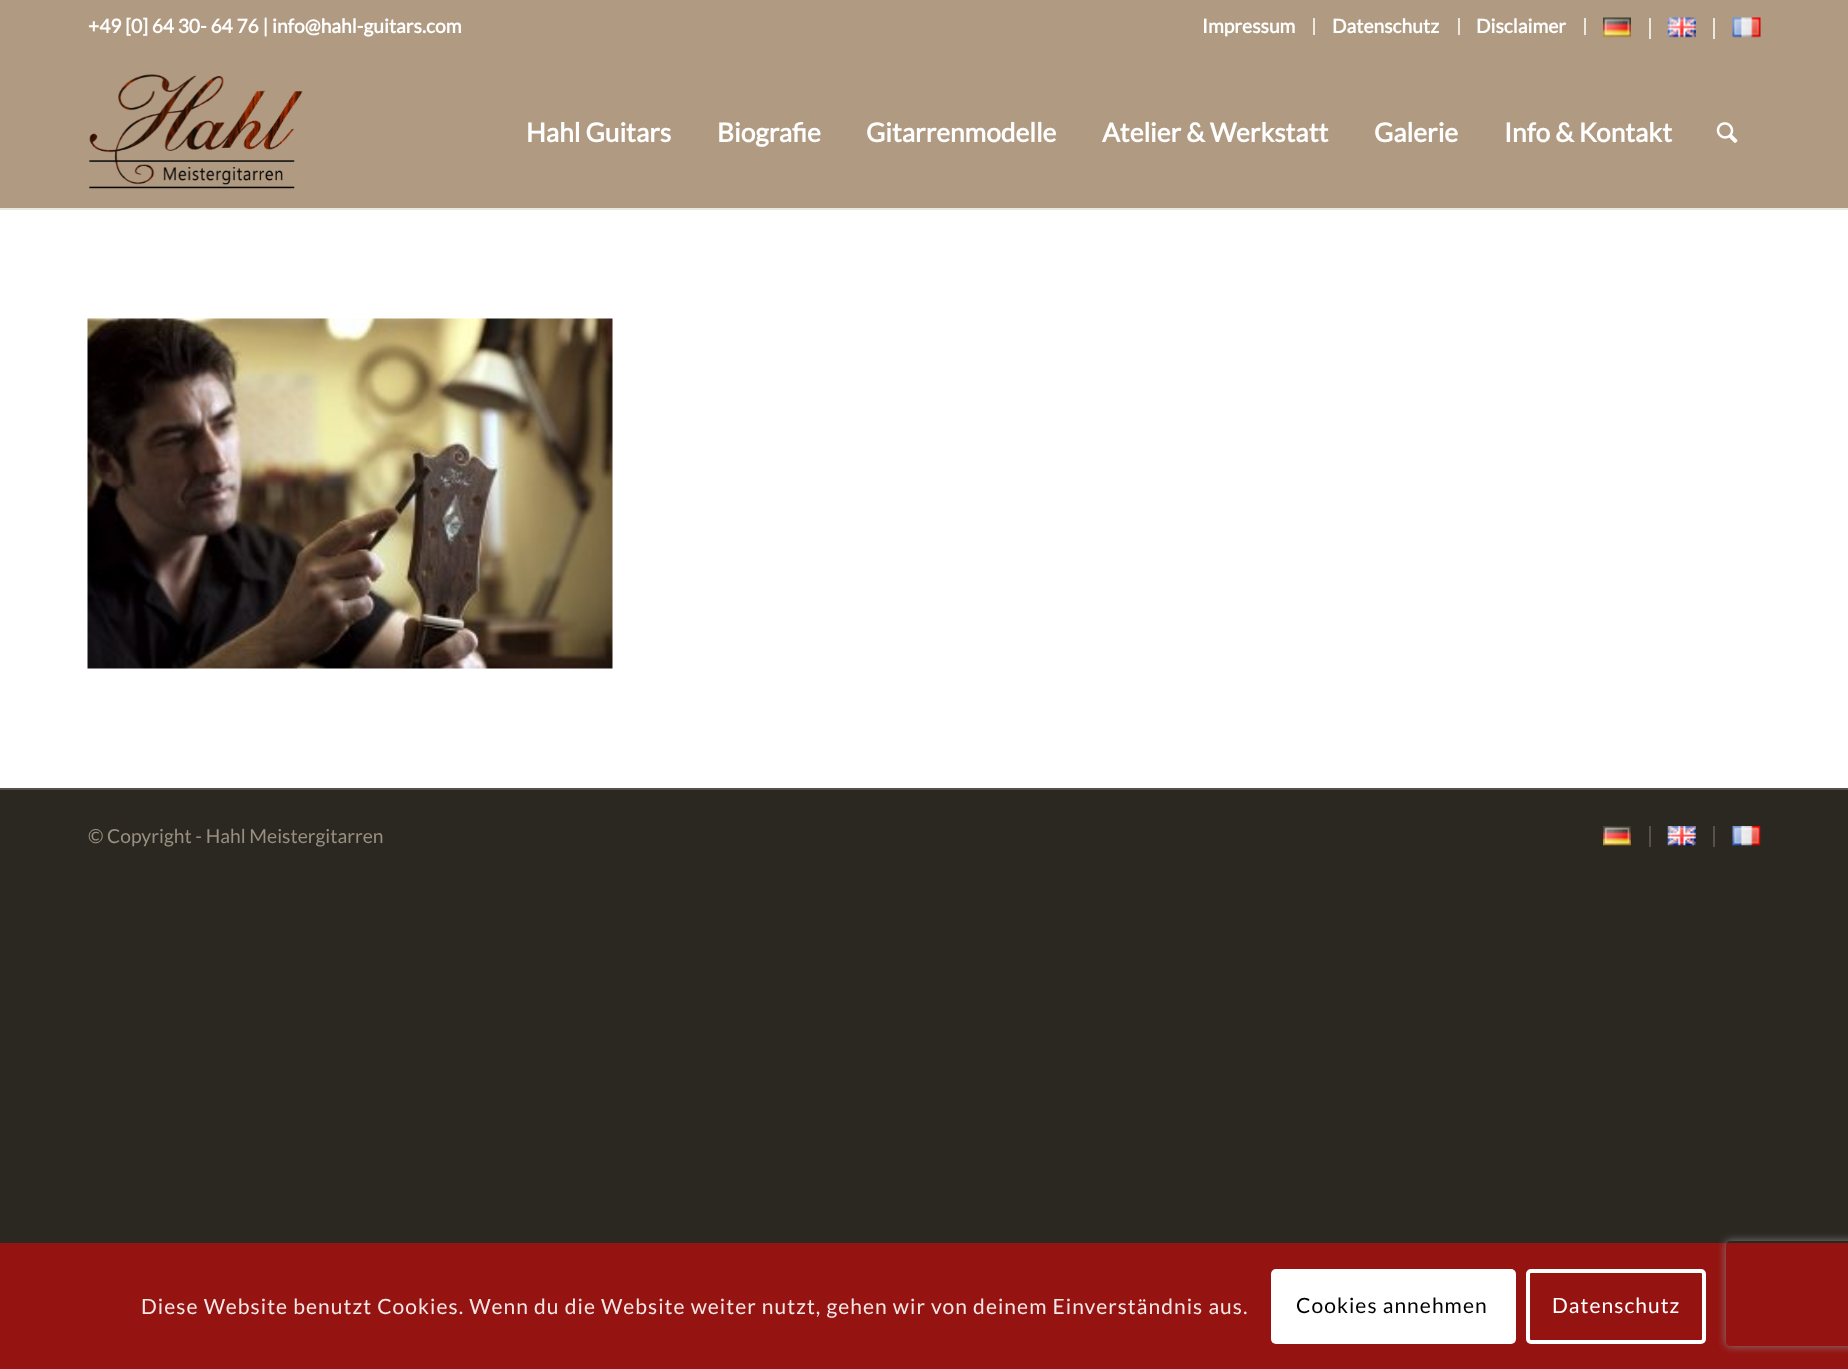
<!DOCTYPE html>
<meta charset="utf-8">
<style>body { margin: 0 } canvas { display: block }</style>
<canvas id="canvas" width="1848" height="1369"></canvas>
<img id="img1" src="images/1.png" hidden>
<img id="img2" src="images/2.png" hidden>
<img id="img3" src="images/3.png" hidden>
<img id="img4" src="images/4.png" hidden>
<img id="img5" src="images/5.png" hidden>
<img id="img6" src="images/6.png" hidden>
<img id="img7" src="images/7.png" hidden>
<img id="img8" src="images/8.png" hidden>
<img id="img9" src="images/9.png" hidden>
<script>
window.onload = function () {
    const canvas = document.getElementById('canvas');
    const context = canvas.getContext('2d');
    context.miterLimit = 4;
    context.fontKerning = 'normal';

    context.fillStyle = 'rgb(43, 40, 34)';
    context.fillRect(0, 0, 1848, 1369);
    context.fillStyle = 'rgb(176, 154, 130)';
    context.fillRect(0, 0, 1848, 208);
    context.fillStyle = 'rgb(235, 232, 226)';
    context.fillRect(1313, 18, 2, 17);
    context.fillRect(1458, 18, 2, 17);
    context.fillRect(1584, 18, 2, 17);
    context.fillRect(1649, 18, 2, 21);
    context.drawImage(document.getElementById('img1'), 1603, 17, 28, 21);
    context.fillRect(1713, 18, 2, 21);
    context.drawImage(document.getElementById('img2'), 1667, 17, 29, 21);
    context.drawImage(document.getElementById('img3'), 1732, 17, 29, 21);
    context.drawImage(document.getElementById('img4'), 89, 74, 214, 115);
    context.drawImage(document.getElementById('img5'), 1716, 122, 22, 21);
    context.fillStyle = 'rgb(255, 255, 255)';
    context.fillRect(0, 210, 1848, 578);
    context.fillStyle = 'rgb(235, 232, 226)';
    context.fillRect(0, 208, 1848, 2);
    context.drawImage(document.getElementById('img6'), 87, 318, 526, 351);
    context.fillStyle = 'rgb(87, 81, 73)';
    context.fillRect(0, 788, 1848, 2);
    context.drawImage(document.getElementById('img7'), 1603, 826, 28, 20);
    context.fillRect(1649, 826, 2, 21);
    context.drawImage(document.getElementById('img8'), 1667, 826, 29, 20);
    context.fillRect(1713, 826, 2, 21);
    context.drawImage(document.getElementById('img9'), 1732, 826, 29, 20);
    context.fillStyle = 'rgb(149, 20, 17)';
    context.fillRect(0, 1243, 1848, 126);
    context.fillStyle = 'rgb(255, 255, 255)';
    context.beginPath();
    context.roundRect(1271, 1269, 245, 75, 5);
    context.fill();
    context.beginPath();
    context.roundRect(1528, 1271, 176, 71, 3);
    context.strokeStyle = 'rgb(255, 255, 255)';
    context.lineWidth = 4;
    context.stroke();
    context.save();
    context.beginPath();
    context.moveTo(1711, 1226);
    context.lineTo(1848, 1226);
    context.lineTo(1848, 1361);
    context.lineTo(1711, 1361);
    context.closePath();
    context.moveTo(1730, 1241);
    context.lineTo(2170, 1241);
    context.bezierCurveTo(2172, 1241, 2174, 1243, 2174, 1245);
    context.lineTo(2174, 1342);
    context.bezierCurveTo(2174, 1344, 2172, 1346, 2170, 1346);
    context.lineTo(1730, 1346);
    context.bezierCurveTo(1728, 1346, 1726, 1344, 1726, 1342);
    context.lineTo(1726, 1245);
    context.bezierCurveTo(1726, 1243, 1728, 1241, 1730, 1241);
    context.closePath();
    context.clip('evenodd');
    context.fillStyle = 'rgb(128, 128, 128)';
    context.filter = 'blur(4.5px)';
    context.beginPath();
    context.roundRect(1726, 1241, 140, 105, 4);
    context.fill();
    context.filter = 'none';
    context.restore();
    context.font = 'bold 19.25px Lato';
    context.fillText('+49 [0] 64 30- 64 76 | info@hahl-guitars.com', 88, 33);
    context.fillText('Impressum', 1202, 33);
    context.fillText('Datenschutz', 1332, 33);
    context.fillText('Disclaimer', 1476, 33);
    context.font = 'bold 26.25px Lato';
    context.fillText('Hahl Guitars', 526, 142);
    context.fillText('Biografie', 717, 142);
    context.fillText('Gitarrenmodelle', 866, 142);
    context.fillText('Atelier & Werkstatt', 1102, 142);
    context.fillText('Galerie', 1374, 142);
    context.fillText('Info & Kontakt', 1504, 142);
    context.font = '19.25px Lato';
    context.fillStyle = 'rgb(152, 143, 129)';
    context.fillText('© Copyright - Hahl Meistergitarren', 88, 843);
    context.letterSpacing = '1.05px';
    context.font = '21px Lato';
    context.fillStyle = 'rgb(244, 232, 231)';
    context.fillText('Diese Website benutzt Cookies. Wenn du die Website weiter nutzt, gehen wir von deinem Einverständnis aus.', 141, 1314);
    context.fillStyle = 'rgb(0, 0, 0)';
    context.fillText('Cookies annehmen', 1296, 1313);
    context.fillStyle = 'rgb(255, 255, 255)';
    context.fillText('Datenschutz', 1552, 1313);
};
</script>
